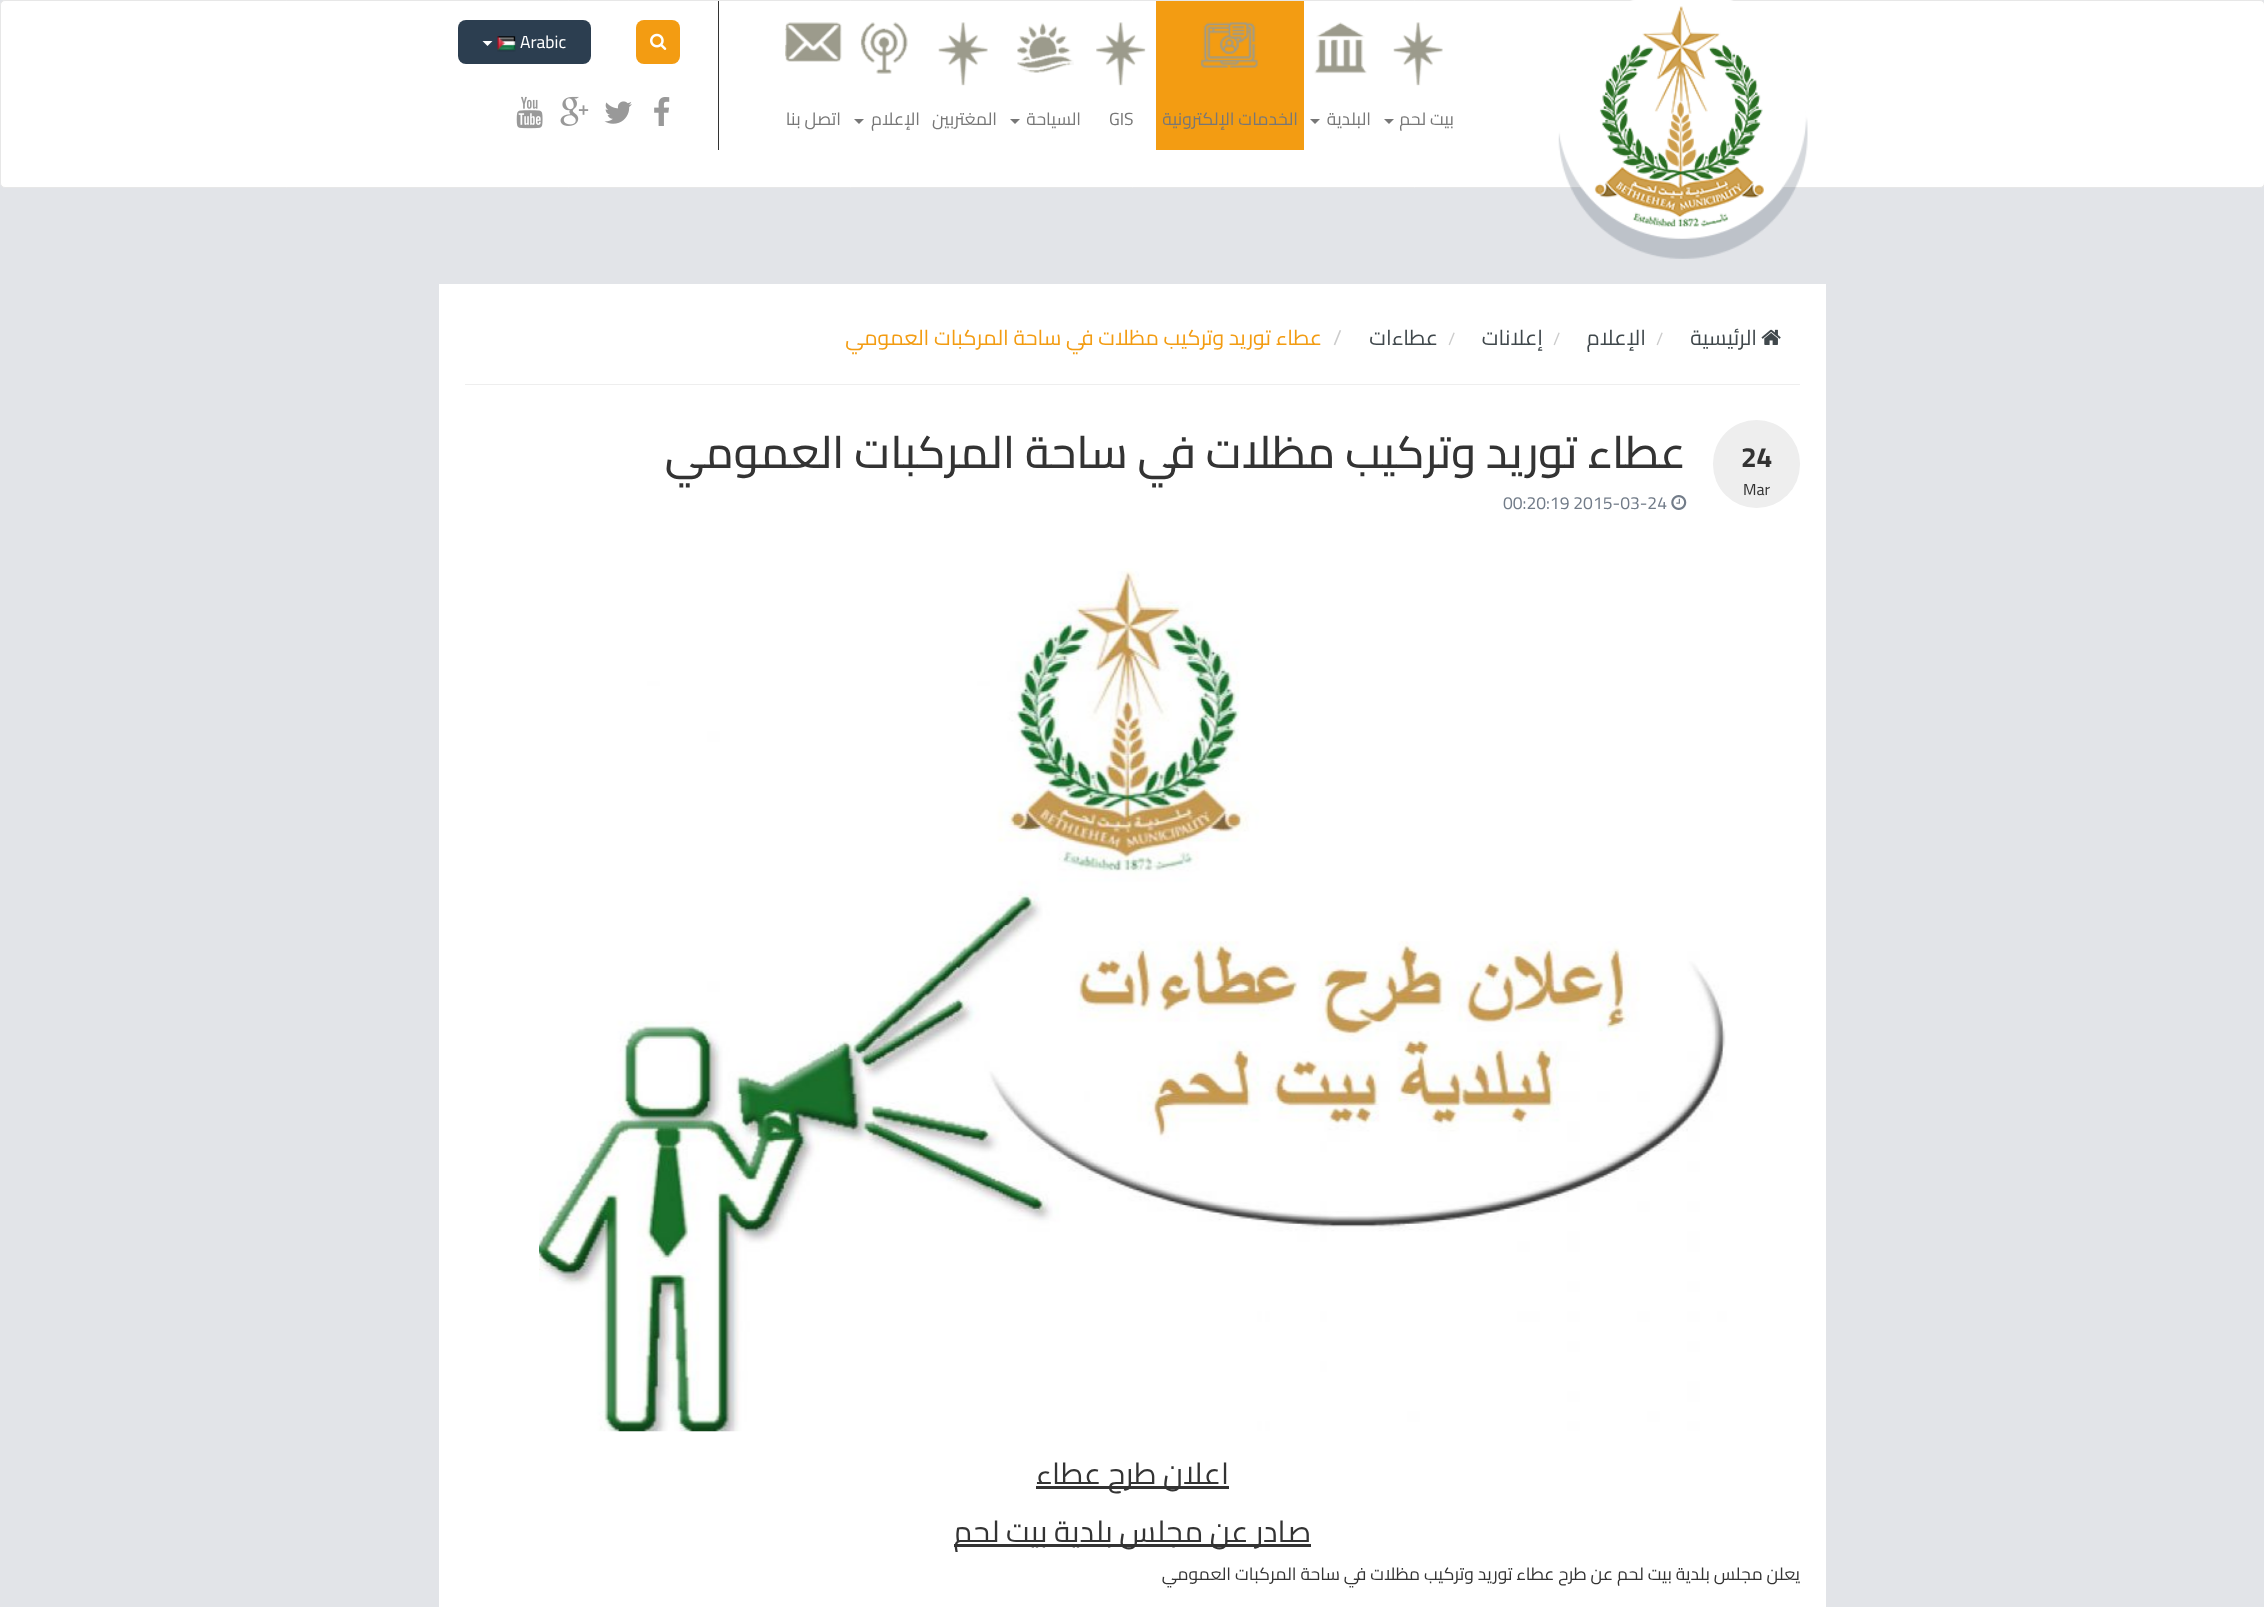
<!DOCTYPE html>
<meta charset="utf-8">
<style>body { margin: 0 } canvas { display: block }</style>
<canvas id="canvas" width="2264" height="1607"></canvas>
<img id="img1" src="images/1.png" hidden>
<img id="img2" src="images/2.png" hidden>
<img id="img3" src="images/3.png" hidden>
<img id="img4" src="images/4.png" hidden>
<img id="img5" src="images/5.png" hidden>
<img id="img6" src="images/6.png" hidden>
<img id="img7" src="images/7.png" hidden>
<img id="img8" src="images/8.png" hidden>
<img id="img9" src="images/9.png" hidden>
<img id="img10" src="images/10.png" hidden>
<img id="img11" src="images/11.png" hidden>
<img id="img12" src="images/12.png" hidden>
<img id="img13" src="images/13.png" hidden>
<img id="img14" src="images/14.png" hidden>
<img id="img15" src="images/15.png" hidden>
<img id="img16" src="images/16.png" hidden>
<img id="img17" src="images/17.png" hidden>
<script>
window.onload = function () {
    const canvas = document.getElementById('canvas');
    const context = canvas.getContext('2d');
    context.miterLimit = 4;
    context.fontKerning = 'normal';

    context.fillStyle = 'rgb(226, 228, 232)';
    context.fillRect(0, 0, 2264, 1607);
    context.fillStyle = 'rgb(255, 255, 255)';
    context.beginPath();
    context.roundRect(0.5, 0.5, 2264, 187, 4.5);
    context.fill();
    context.strokeStyle = 'rgb(231, 231, 231)';
    context.stroke();
    context.drawImage(document.getElementById('img1'), 1558, 0, 250, 259);
    context.fillStyle = 'rgb(243, 156, 18)';
    context.beginPath();
    context.roundRect(636, 20, 44, 44, 8);
    context.fill();
    context.drawImage(document.getElementById('img2'), 650, 33, 17, 17);
    context.fillStyle = 'rgb(44, 62, 80)';
    context.beginPath();
    context.roundRect(458, 20, 133, 44, 8);
    context.fill();
    context.drawImage(document.getElementById('img3'), 497, 36, 19, 16);
    context.fillStyle = 'rgb(255, 255, 255)';
    context.beginPath();
    context.moveTo(482.5, 41);
    context.lineTo(492.5, 41);
    context.lineTo(487.5, 46);
    context.closePath();
    context.fill();
    context.drawImage(document.getElementById('img4'), 654, 97, 16, 29);
    context.drawImage(document.getElementById('img5'), 604, 101, 28, 23);
    context.drawImage(document.getElementById('img6'), 560, 96, 29, 30);
    context.drawImage(document.getElementById('img7'), 516, 96, 27, 33);
    context.fillStyle = 'rgb(51, 51, 51)';
    context.fillRect(718, 1, 1, 149);
    context.drawImage(document.getElementById('img8'), 1393, 22, 50, 64);
    context.fillStyle = 'rgb(119, 119, 119)';
    context.beginPath();
    context.moveTo(1384, 119);
    context.lineTo(1394, 119);
    context.lineTo(1389, 124);
    context.closePath();
    context.fill();
    context.drawImage(document.getElementById('img9'), 1314, 22, 53, 52);
    context.beginPath();
    context.moveTo(1310, 119);
    context.lineTo(1320, 119);
    context.lineTo(1315, 124);
    context.closePath();
    context.fill();
    context.fillStyle = 'rgb(243, 156, 18)';
    context.fillRect(1156, 1, 148, 149);
    context.drawImage(document.getElementById('img10'), 1201, 22, 57, 46);
    context.drawImage(document.getElementById('img11'), 1096, 22, 50, 64);
    context.drawImage(document.getElementById('img12'), 1017, 22, 57, 51);
    context.fillStyle = 'rgb(119, 119, 119)';
    context.beginPath();
    context.moveTo(1010, 119);
    context.lineTo(1020, 119);
    context.lineTo(1015, 124);
    context.closePath();
    context.fill();
    context.drawImage(document.getElementById('img8'), 938, 22, 50, 64);
    context.drawImage(document.getElementById('img13'), 860, 22, 48, 52);
    context.beginPath();
    context.moveTo(854, 119);
    context.lineTo(864, 119);
    context.lineTo(859, 124);
    context.closePath();
    context.fill();
    context.drawImage(document.getElementById('img14'), 785, 22, 57, 40);
    context.fillStyle = 'rgb(255, 255, 255)';
    context.fillRect(439, 284, 1387, 1323);
    context.fillStyle = 'rgb(238, 238, 238)';
    context.fillRect(465, 384, 1335, 1);
    context.drawImage(document.getElementById('img15'), 1761, 329, 20, 16);
    context.beginPath();
    context.roundRect(1713, 420, 87, 88, 43.5);
    context.fill();
    context.drawImage(document.getElementById('img16'), 1671, 495, 16, 15);
    context.drawImage(document.getElementById('img17'), 539, 568, 1188, 864);
    context.fillStyle = 'rgb(51, 51, 51)';
    context.fillRect(1036, 1486, 193, 3);
    context.fillRect(954, 1544, 357, 3);
    context.font = '17.5px Cairo';
    context.fillStyle = 'rgb(255, 255, 255)';
    context.fillText('Arabic', 520, 48);
    context.direction = 'rtl';
    context.fillStyle = 'rgb(119, 119, 119)';
    context.fillText('بيت لحم', 1454, 125);
    context.fillText('البلدية', 1371, 125);
    context.fillText('الخدمات الإلكترونية', 1298, 125);
    context.direction = 'ltr';
    context.fillText('GIS', 1109, 125);
    context.direction = 'rtl';
    context.fillText('السياحة', 1081, 125);
    context.fillText('المغتربين', 997, 125);
    context.fillText('الإعلام', 920, 125);
    context.fillText('اتصل بنا', 841, 125);
    context.font = '21.25px Cairo';
    context.fillStyle = 'rgb(64, 72, 76)';
    context.fillText('الرئيسية', 1757, 345);
    context.direction = 'ltr';
    context.font = '17.5px Cairo';
    context.fillStyle = 'rgb(204, 204, 204)';
    context.fillText('/', 1656, 345);
    context.direction = 'rtl';
    context.font = '21.25px Cairo';
    context.fillStyle = 'rgb(64, 72, 76)';
    context.fillText('الإعلام', 1646, 345);
    context.direction = 'ltr';
    context.font = '17.5px Cairo';
    context.fillStyle = 'rgb(204, 204, 204)';
    context.fillText('/', 1553, 345);
    context.direction = 'rtl';
    context.font = '21.25px Cairo';
    context.fillStyle = 'rgb(64, 72, 76)';
    context.fillText('إعلانات', 1543, 345);
    context.direction = 'ltr';
    context.font = '17.5px Cairo';
    context.fillStyle = 'rgb(204, 204, 204)';
    context.fillText('/', 1448, 345);
    context.direction = 'rtl';
    context.font = '21.25px Cairo';
    context.fillStyle = 'rgb(64, 72, 76)';
    context.fillText('عطاءات', 1438, 345);
    context.direction = 'ltr';
    context.fillStyle = 'rgb(204, 204, 204)';
    context.fillText('/', 1333, 345);
    context.direction = 'rtl';
    context.fillStyle = 'rgb(243, 156, 18)';
    context.fillText('عطاء توريد وتركيب مظلات في ساحة المركبات العمومي', 1322, 345);
    context.direction = 'ltr';
    context.font = 'bold 28px Cairo';
    context.fillStyle = 'rgb(51, 51, 51)';
    context.fillText('24', 1741, 467);
    context.font = '16px Cairo';
    context.fillText('Mar', 1743, 495);
    context.direction = 'rtl';
    context.font = '500 45px Cairo';
    context.fillText('عطاء توريد وتركيب مظلات في ساحة المركبات العمومي', 1686, 468);
    context.direction = 'ltr';
    context.font = '17.5px Cairo';
    context.fillStyle = 'rgb(114, 124, 137)';
    context.fillText('00:20:19 2015-03-24', 1503, 509);
    context.direction = 'rtl';
    context.font = '30px Cairo';
    context.fillStyle = 'rgb(51, 51, 51)';
    context.fillText('اعلان طرح عطاء', 1229, 1484);
    context.fillText('صادر عن مجلس بلدية بيت لحم', 1311, 1542);
    context.font = '17.5px Cairo';
    context.fillText('يعلن مجلس بلدية بيت لحم عن طرح عطاء توريد وتركيب مظلات في ساحة المركبات العمومي', 1800, 1580);
};
</script>
